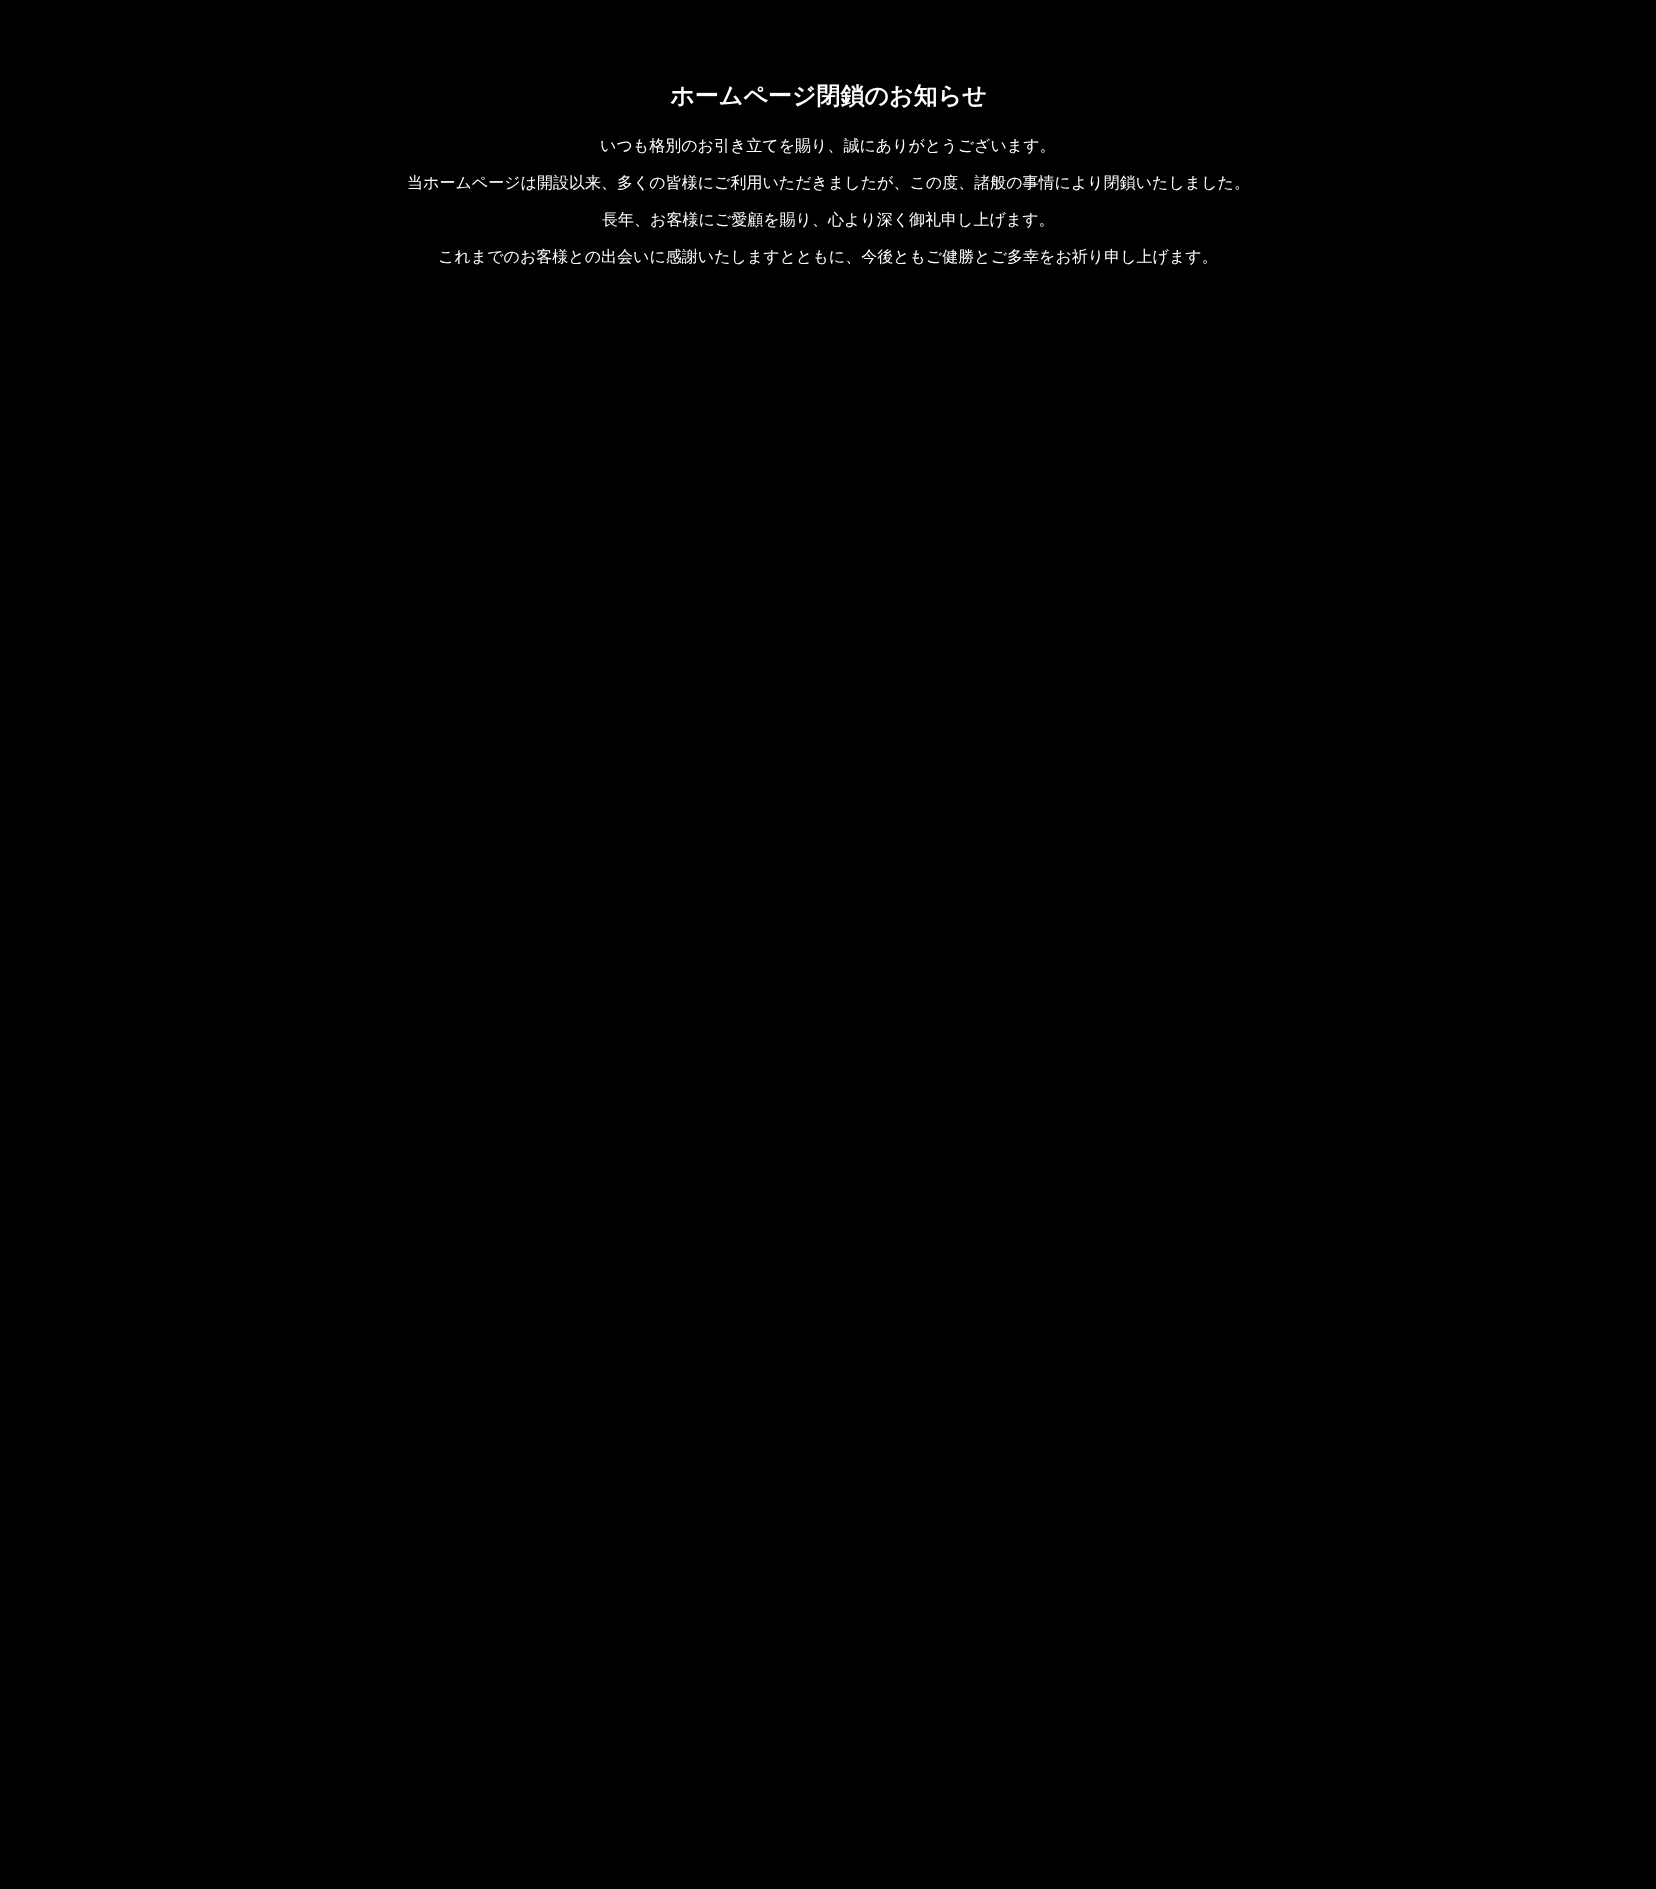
<!DOCTYPE html>
<meta charset="utf-8">
<style>body { margin: 0 } canvas { display: block }</style>
<canvas id="canvas" width="1656" height="1889"></canvas>
<script>
window.onload = function () {
    const canvas = document.getElementById('canvas');
    const context = canvas.getContext('2d');
    context.miterLimit = 4;
    context.fontKerning = 'normal';

    context.fillStyle = 'rgb(0, 0, 0)';
    context.fillRect(0, 0, 1656, 1889);
    context.font = 'bold 24px WenQuanYi Zen Hei';
    context.fillStyle = 'rgb(255, 255, 255)';
    context.fillText('ホームページ閉鎖のお知らせ', 670, 104);
    context.font = '500 16px WenQuanYi Zen Hei';
    context.fillText('いつも格別のお引き立てを賜り、誠にありがとうございます。', 600, 151);
    context.fillText('当ホームページは開設以来、多くの皆様にご利用いただきましたが、この度、諸般の事情により閉鎖いたしました。', 407, 188);
    context.fillText('長年、お客様にご愛顧を賜り、心より深く御礼申し上げます。', 602, 225);
    context.fillText('これまでのお客様との出会いに感謝いたしますとともに、今後ともご健勝とご多幸をお祈り申し上げます。', 438, 262);
};
</script>
